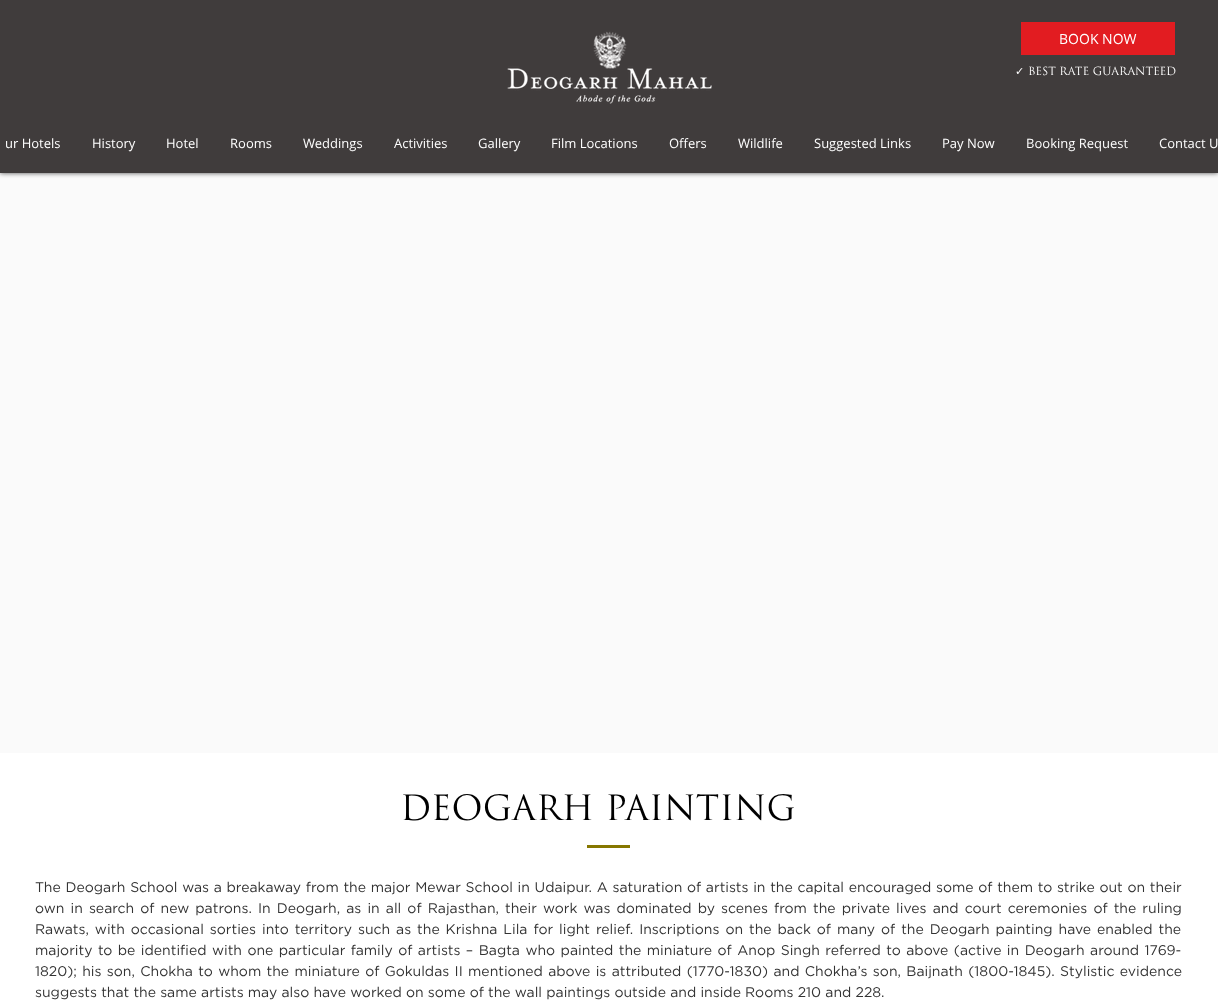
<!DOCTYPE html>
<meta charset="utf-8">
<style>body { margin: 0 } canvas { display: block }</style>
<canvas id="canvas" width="1218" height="1001"></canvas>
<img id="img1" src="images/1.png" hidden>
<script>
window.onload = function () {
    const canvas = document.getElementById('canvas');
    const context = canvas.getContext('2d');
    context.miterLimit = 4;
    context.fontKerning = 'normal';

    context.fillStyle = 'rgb(255, 255, 255)';
    context.fillRect(0, 0, 1218, 1001);
    context.fillStyle = 'rgb(250, 250, 250)';
    context.fillRect(0, 173, 1218, 580);
    context.fillStyle = 'rgba(0, 0, 0, 0.7)';
    context.filter = 'blur(2.5px)';
    context.beginPath();
    context.rect(0, 0, 1218, 173);
    context.fill();
    context.filter = 'none';
    context.fillStyle = 'rgb(64, 60, 60)';
    context.fillRect(0, 0, 1218, 173);
    context.drawImage(document.getElementById('img1'), 507, 31, 205, 73);
    context.fillStyle = 'rgb(226, 28, 33)';
    context.fillRect(1021, 22, 154, 33);
    context.fillStyle = 'rgb(134, 119, 0)';
    context.fillRect(587, 845, 43, 3);
    context.font = '14px Open Sans';
    context.fillStyle = 'rgb(255, 255, 255)';
    context.fillText('BOOK NOW', 1059, 44);
    context.font = '11px DejaVu Sans';
    context.fillText('✓', 1015, 75);
    context.font = '11px "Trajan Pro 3"';
    context.fillText('BEST RATE GUARANTEED', 1028, 75);
    context.font = '13px Open Sans';
    context.fillText('ur Hotels', 5, 148);
    context.fillText('History', 92, 148);
    context.fillText('Hotel', 166, 148);
    context.fillText('Rooms', 230, 148);
    context.fillText('Weddings', 303, 148);
    context.fillText('Activities', 394, 148);
    context.fillText('Gallery', 478, 148);
    context.fillText('Film Locations', 551, 148);
    context.fillText('Offers', 669, 148);
    context.fillText('Wildlife', 738, 148);
    context.fillText('Suggested Links', 814, 148);
    context.fillText('Pay Now', 942, 148);
    context.fillText('Booking Request', 1026, 148);
    context.fillText('Contact U', 1159, 148);
    context.font = '34px "Trajan Pro 3"';
    context.fillStyle = 'rgb(0, 0, 0)';
    context.fillText('DEOGARH PAINTING', 400, 820);
    context.wordSpacing = '0.5px';
    context.font = '14px Gotham';
    context.fillStyle = 'rgb(51, 51, 51)';
    context.fillText('The Deogarh School was a breakaway from the major Mewar School in Udaipur. A saturation of artists in the capital encouraged some of them to strike out on their', 35, 892);
    context.wordSpacing = '1.9px';
    context.fillText('own in search of new patrons. In Deogarh, as in all of Rajasthan, their work was dominated by scenes from the private lives and court ceremonies of the ruling', 35, 913);
    context.wordSpacing = '1.75px';
    context.fillText('Rawats, with occasional sorties into territory such as the Krishna Lila for light relief. Inscriptions on the back of many of the Deogarh painting have enabled the', 35, 934);
    context.wordSpacing = '1.25px';
    context.fillText('majority to be identified with one particular family of artists – Bagta who painted the miniature of Anop Singh referred to above (active in Deogarh around 1769-', 35, 955);
    context.wordSpacing = '1.15px';
    context.fillText('1820); his son, Chokha to whom the miniature of Gokuldas II mentioned above is attributed (1770-1830) and Chokha’s son, Baijnath (1800-1845). Stylistic evidence', 35, 976);
    context.wordSpacing = '0px';
    context.fillText('suggests that the same artists may also have worked on some of the wall paintings outside and inside Rooms 210 and 228.', 35, 997);
};
</script>
